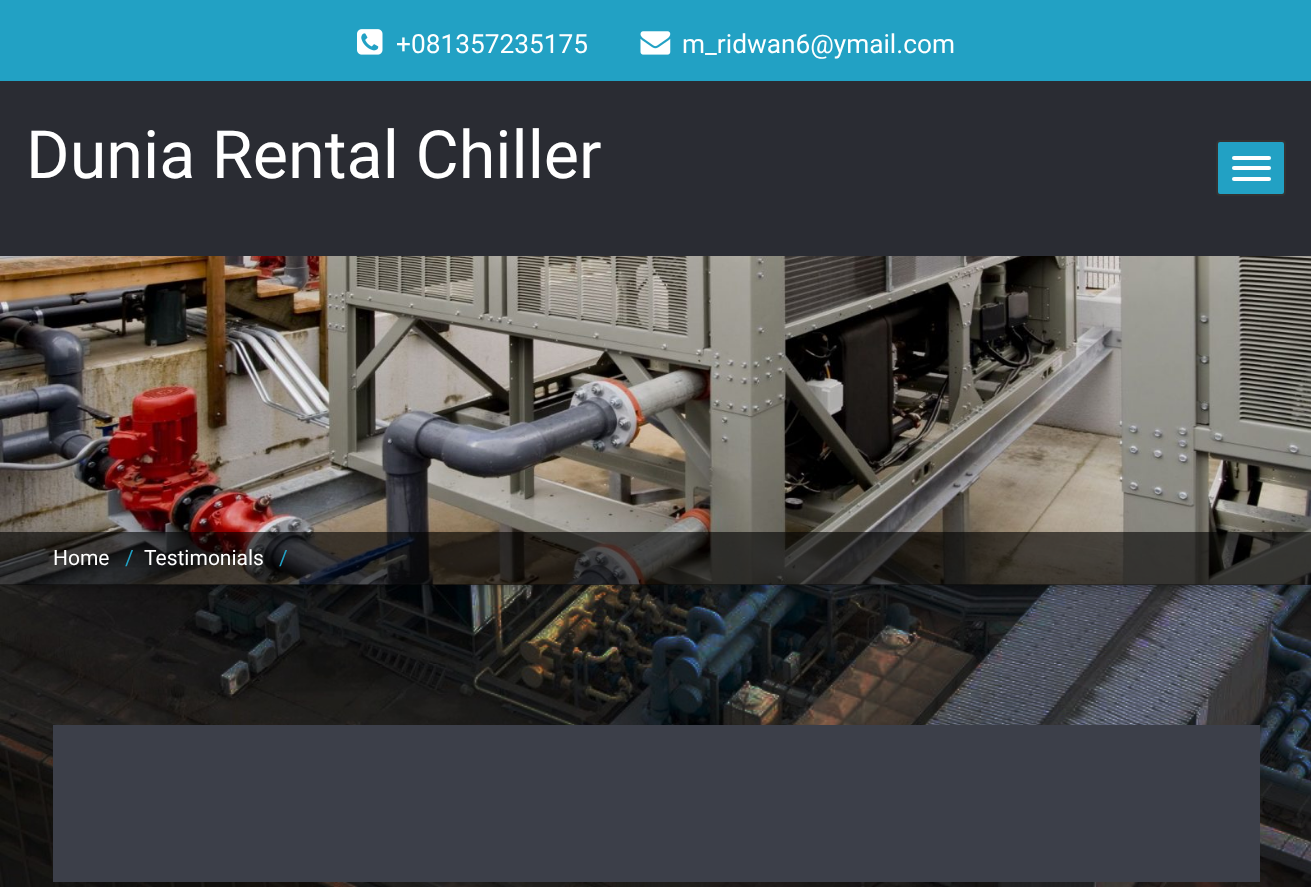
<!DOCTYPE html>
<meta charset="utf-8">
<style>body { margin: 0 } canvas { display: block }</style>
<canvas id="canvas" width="1311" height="887"></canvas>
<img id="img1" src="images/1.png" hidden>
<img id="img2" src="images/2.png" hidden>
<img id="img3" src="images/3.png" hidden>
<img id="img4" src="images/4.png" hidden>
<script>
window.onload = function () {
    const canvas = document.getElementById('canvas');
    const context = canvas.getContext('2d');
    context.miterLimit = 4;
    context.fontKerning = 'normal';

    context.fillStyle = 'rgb(255, 255, 255)';
    context.fillRect(0, 0, 1311, 887);
    context.drawImage(document.getElementById('img1'), 0, 584, 1311, 303);
    context.fillStyle = 'rgb(34, 161, 196)';
    context.fillRect(0, 0, 1311, 81);
    context.drawImage(document.getElementById('img2'), 357, 29, 26, 26);
    context.drawImage(document.getElementById('img3'), 640, 31, 31, 24);
    context.fillStyle = 'rgb(42, 44, 51)';
    context.fillRect(0, 81, 1311, 175);
    context.fillStyle = 'rgb(34, 161, 196)';
    context.beginPath();
    context.roundRect(1217, 141, 68, 54, 3);
    context.fill();
    context.strokeStyle = 'rgb(51, 51, 51)';
    context.lineWidth = 2;
    context.stroke();
    context.fillStyle = 'rgb(255, 255, 255)';
    context.beginPath();
    context.roundRect(1232, 156, 39, 4, 2);
    context.fill();
    context.beginPath();
    context.roundRect(1232, 166, 39, 4, 2);
    context.fill();
    context.beginPath();
    context.roundRect(1232, 177, 39, 4, 2);
    context.fill();
    context.fillStyle = 'rgb(0, 0, 0)';
    context.filter = 'blur(9px)';
    context.beginPath();
    context.rect(18, 285, 1277, 294);
    context.fill();
    context.filter = 'none';
    context.drawImage(document.getElementById('img4'), 0, 256, 1311, 329);
    context.fillStyle = 'rgba(0, 0, 0, 0.6)';
    context.fillRect(0, 532, 1311, 53);
    context.fillStyle = 'rgb(60, 63, 73)';
    context.fillRect(53, 725, 1207, 157);
    context.font = '26.25px Roboto';
    context.fillStyle = 'rgb(255, 255, 255)';
    context.fillText('+081357235175', 396, 53);
    context.fillText('m_ridwan6@ymail.com', 682, 53);
    context.font = '66.5px Roboto';
    context.fillText('Dunia Rental Chiller', 26, 178);
    context.font = '21px Roboto';
    context.fillText('Home', 53, 565);
    context.fillStyle = 'rgb(34, 161, 196)';
    context.fillText('/', 125, 565);
    context.fillStyle = 'rgb(255, 255, 255)';
    context.fillText('Testimonials', 144, 565);
    context.fillStyle = 'rgb(34, 161, 196)';
    context.fillText('/', 279, 565);
};
</script>
